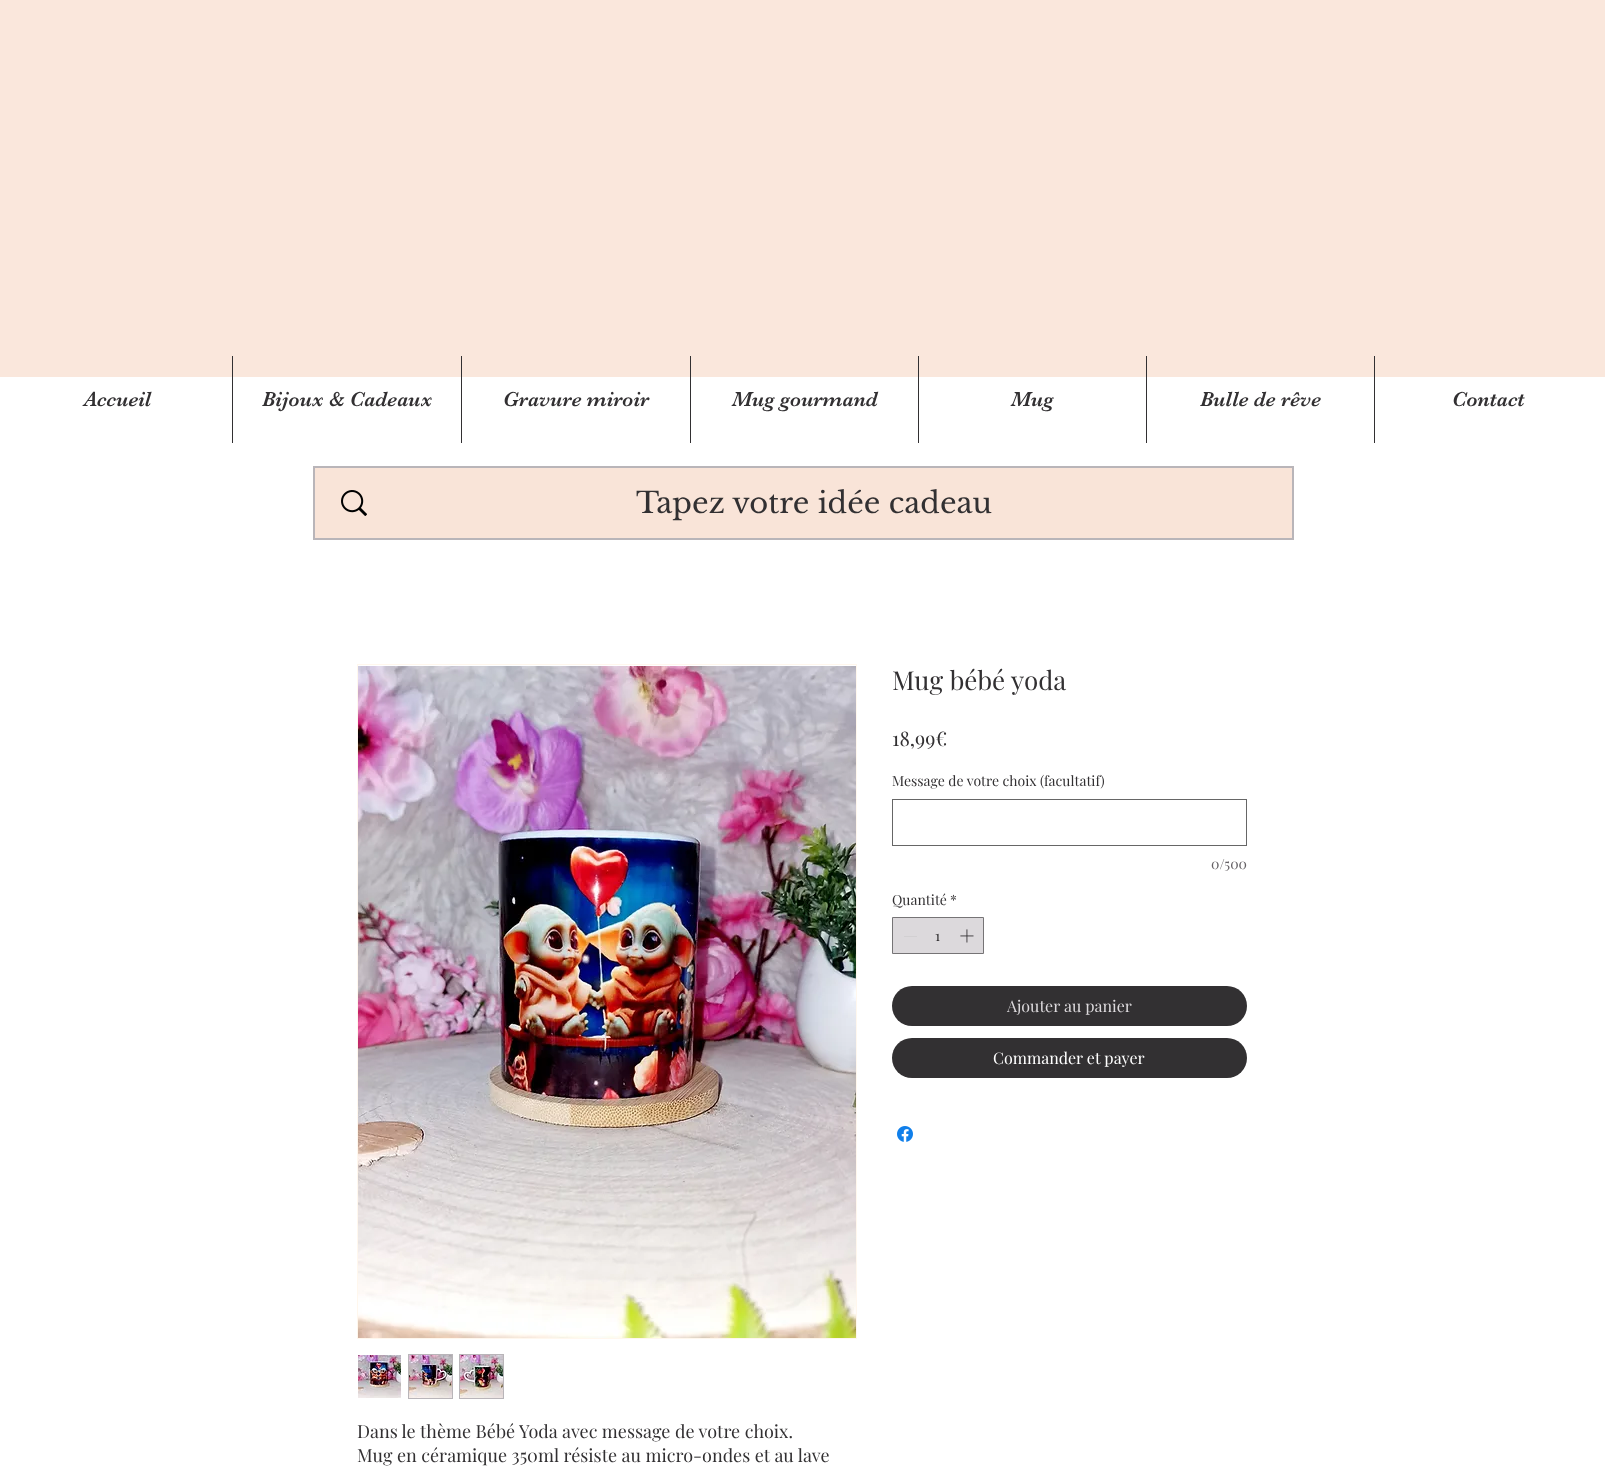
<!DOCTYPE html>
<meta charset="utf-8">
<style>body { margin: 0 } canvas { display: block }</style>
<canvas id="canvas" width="1605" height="1478"></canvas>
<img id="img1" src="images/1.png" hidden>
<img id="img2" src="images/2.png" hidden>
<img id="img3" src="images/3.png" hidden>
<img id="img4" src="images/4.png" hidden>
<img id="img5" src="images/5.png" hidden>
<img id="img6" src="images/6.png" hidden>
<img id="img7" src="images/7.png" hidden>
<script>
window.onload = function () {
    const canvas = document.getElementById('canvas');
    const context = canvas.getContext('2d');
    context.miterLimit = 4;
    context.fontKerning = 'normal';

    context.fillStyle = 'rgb(255, 255, 255)';
    context.fillRect(0, 0, 1605, 1478);
    context.fillStyle = 'rgb(250, 231, 220)';
    context.fillRect(0, 0, 1605, 377);
    context.fillStyle = 'rgb(50, 48, 50)';
    context.fillRect(232, 356, 1, 87);
    context.fillRect(461, 356, 1, 87);
    context.fillRect(690, 356, 1, 87);
    context.fillRect(918, 356, 1, 87);
    context.fillRect(1146, 356, 1, 87);
    context.fillRect(1374, 356, 1, 87);
    context.strokeStyle = 'rgb(185, 181, 185)';
    context.lineWidth = 2;
    context.strokeRect(314, 467, 979, 72);
    context.fillStyle = 'rgb(249, 228, 216)';
    context.fillRect(315, 468, 977, 70);
    context.drawImage(document.getElementById('img1'), 341, 490, 26, 26);
    context.strokeStyle = 'rgb(102, 102, 102)';
    context.lineWidth = 1;
    context.strokeRect(892.5, 799.5, 354, 46);
    context.fillStyle = 'rgb(220, 217, 220)';
    context.beginPath();
    context.rect(892.5, 917.5, 91, 36);
    context.fill();
    context.strokeStyle = 'rgb(118, 116, 118)';
    context.stroke();
    context.fillStyle = 'rgb(210, 208, 210)';
    context.fillRect(904, 936, 13, 1);
    context.drawImage(document.getElementById('img2'), 960, 929, 14, 14);
    context.fillStyle = 'rgb(50, 48, 50)';
    context.beginPath();
    context.roundRect(892, 986, 355, 40, 20);
    context.fill();
    context.beginPath();
    context.roundRect(892, 1038, 355, 40, 20);
    context.fill();
    context.drawImage(document.getElementById('img3'), 897, 1126, 16, 16);
    context.strokeStyle = 'rgb(255, 247, 237)';
    context.strokeRect(357.5, 664.5, 499, 674);
    context.drawImage(document.getElementById('img4'), 358, 666, 498, 672);
    context.drawImage(document.getElementById('img5'), 358, 1355, 43, 43);
    context.strokeStyle = 'rgb(185, 181, 185)';
    context.strokeRect(408.5, 1354.5, 44, 44);
    context.drawImage(document.getElementById('img6'), 409, 1355, 43, 43);
    context.strokeRect(459.5, 1354.5, 44, 44);
    context.drawImage(document.getElementById('img7'), 460, 1355, 43, 43);
    context.font = '21px "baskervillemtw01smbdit"';
    context.fillText('Accueil', 84, 406);
    context.fillText('Bijoux & Cadeaux', 262, 406);
    context.fillText('Gravure miroir', 503, 406);
    context.fillText('Mug gourmand', 732, 406);
    context.fillText('Mug', 1011, 406);
    context.fillText('Bulle de rêve', 1200, 406);
    context.fillText('Contact', 1452, 406);
    context.font = '29px Libre Baskerville';
    context.fillText('Tapez votre idée cadeau', 636, 513);
    context.font = '26px Playfair Display';
    context.fillText('Mug bébé yoda', 892, 690);
    context.font = '20px Playfair Display';
    context.fillText('18,99€', 892, 746);
    context.font = '14px Playfair Display';
    context.fillText('Message de votre choix (facultatif)', 892, 786);
    context.fillStyle = 'rgb(100, 96, 100)';
    context.fillText('0/500', 1211, 869);
    context.fillStyle = 'rgb(50, 48, 50)';
    context.fillText('Quantité', 892, 905);
    context.fillText('*', 950, 905);
    context.fillText('1', 935, 941);
    context.font = '16px Playfair Display';
    context.fillStyle = 'rgb(220, 217, 220)';
    context.fillText('Ajouter au panier', 1007, 1012);
    context.fillStyle = 'rgb(255, 255, 255)';
    context.fillText('Commander et payer', 993, 1064);
    context.font = '18px Playfair Display';
    context.fillStyle = 'rgb(50, 48, 50)';
    context.fillText('Dans le thème Bébé Yoda avec message de votre choix.', 357, 1438);
    context.fillText('Mug en céramique 350ml résiste au micro-ondes et au lave', 357, 1462);
};
</script>
